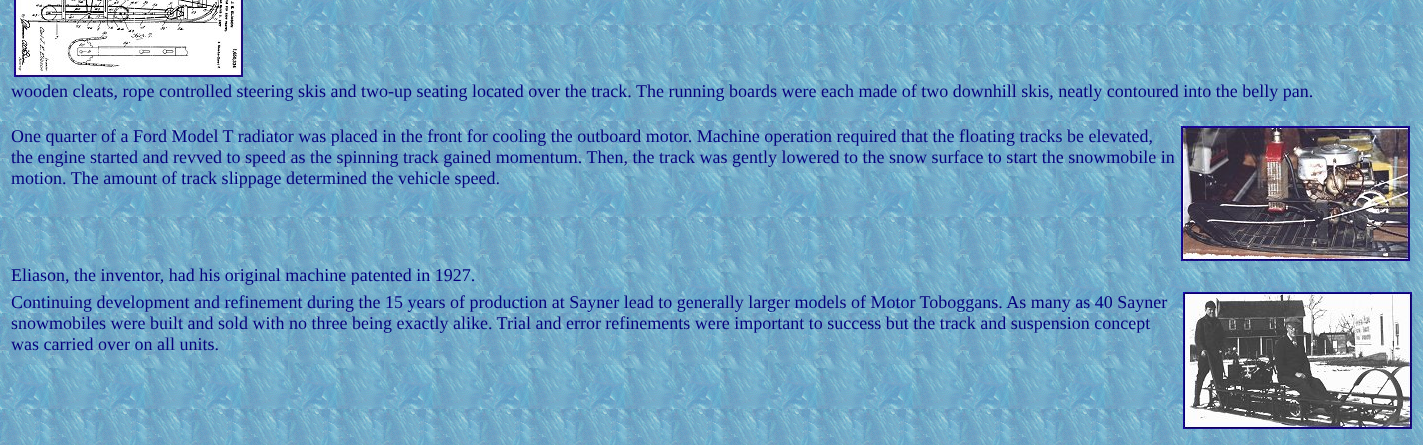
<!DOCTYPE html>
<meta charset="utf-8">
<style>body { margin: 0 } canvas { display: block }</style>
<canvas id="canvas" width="1423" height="445"></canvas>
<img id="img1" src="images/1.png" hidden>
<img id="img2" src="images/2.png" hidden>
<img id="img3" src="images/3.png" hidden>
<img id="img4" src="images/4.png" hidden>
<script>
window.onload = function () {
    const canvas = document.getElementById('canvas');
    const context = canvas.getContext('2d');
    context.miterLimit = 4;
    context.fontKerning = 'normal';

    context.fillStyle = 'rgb(255, 255, 255)';
    context.fillRect(0, 0, 1423, 445);
    context.drawImage(document.getElementById('img1'), 0, 0, 1423, 445);
    context.drawImage(document.getElementById('img2'), 14, 0, 229, 77);
    context.drawImage(document.getElementById('img3'), 1181, 126, 229, 135);
    context.drawImage(document.getElementById('img4'), 1183, 292, 229, 137);
    context.font = '18px Liberation Serif';
    context.fillStyle = 'rgb(6, 0, 125)';
    context.fillText('wooden cleats, rope controlled steering skis and two-up seating located over the track. The running boards were each made of two downhill skis, neatly contoured into the belly pan.', 11, 97);
    context.fillText('One quarter of a Ford Model T radiator was placed in the front for cooling the outboard motor. Machine operation required that the floating tracks be elevated,', 11, 142);
    context.fillText('the engine started and revved to speed as the spinning track gained momentum. Then, the track was gently lowered to the snow surface to start the snowmobile in', 11, 163);
    context.fillText('motion. The amount of track slippage determined the vehicle speed.', 11, 184);
    context.fillText('Eliason, the inventor, had his original machine patented in 1927.', 11, 281);
    context.fillText('Continuing development and refinement during the 15 years of production at Sayner lead to generally larger models of Motor Toboggans. As many as 40 Sayner', 11, 308);
    context.fillText('snowmobiles were built and sold with no three being exactly alike. Trial and error refinements were important to success but the track and suspension concept', 11, 329);
    context.fillText('was carried over on all units.', 11, 350);
};
</script>
